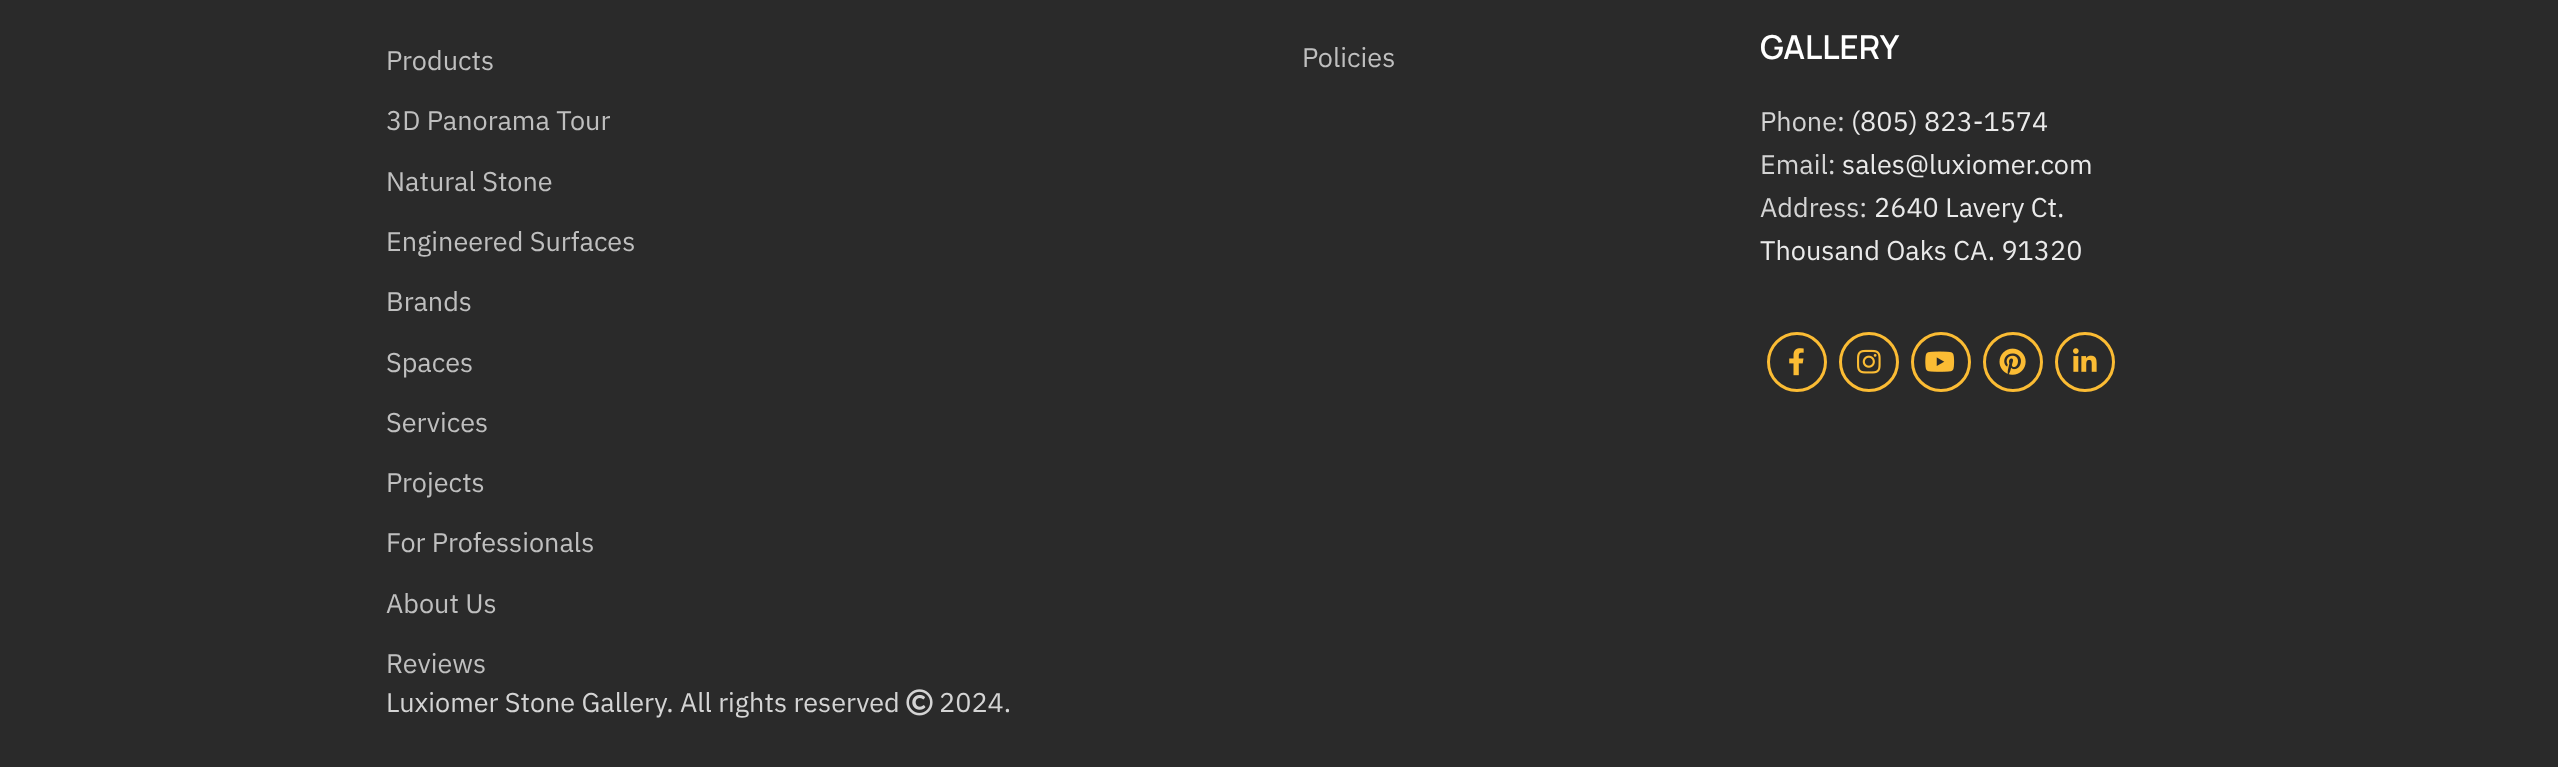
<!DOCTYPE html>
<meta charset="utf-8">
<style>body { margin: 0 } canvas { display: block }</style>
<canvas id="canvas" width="2558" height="767"></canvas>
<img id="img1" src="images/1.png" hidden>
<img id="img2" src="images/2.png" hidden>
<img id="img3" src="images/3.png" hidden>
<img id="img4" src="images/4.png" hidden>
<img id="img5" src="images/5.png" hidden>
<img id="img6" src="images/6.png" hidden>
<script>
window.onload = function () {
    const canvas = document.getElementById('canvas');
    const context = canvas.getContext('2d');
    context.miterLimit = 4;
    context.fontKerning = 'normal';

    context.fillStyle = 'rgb(42, 42, 42)';
    context.fillRect(0, 0, 2558, 767);
    context.beginPath();
    context.arc(1797, 362, 28.5, 0, 2 * Math.PI);
    context.strokeStyle = 'rgb(251, 188, 52)';
    context.lineWidth = 3;
    context.stroke();
    context.drawImage(document.getElementById('img1'), 1789, 348, 15, 28);
    context.beginPath();
    context.arc(1869, 362, 28.5, 0, 2 * Math.PI);
    context.stroke();
    context.drawImage(document.getElementById('img2'), 1857, 349, 24, 25);
    context.beginPath();
    context.arc(1941, 362, 28.5, 0, 2 * Math.PI);
    context.stroke();
    context.drawImage(document.getElementById('img3'), 1925, 351, 30, 21);
    context.beginPath();
    context.arc(2013, 362, 28.5, 0, 2 * Math.PI);
    context.stroke();
    context.drawImage(document.getElementById('img4'), 1999, 348, 27, 27);
    context.beginPath();
    context.arc(2085, 362, 28.5, 0, 2 * Math.PI);
    context.stroke();
    context.drawImage(document.getElementById('img5'), 2073, 348, 24, 24);
    context.drawImage(document.getElementById('img6'), 906, 689, 27, 27);
    context.font = '27px IBM Plex Sans';
    context.fillStyle = 'rgb(191, 191, 191)';
    context.fillText('Products', 386, 70);
    context.fillText('3D Panorama Tour', 386, 130);
    context.fillText('Natural Stone', 386, 191);
    context.fillText('Engineered Surfaces', 386, 251);
    context.fillText('Brands', 386, 311);
    context.fillText('Spaces', 386, 372);
    context.fillText('Services', 386, 432);
    context.fillText('Projects', 386, 492);
    context.fillText('For Professionals', 386, 552);
    context.fillText('About Us', 386, 613);
    context.fillText('Reviews', 386, 673);
    context.fillText('Policies', 1302, 67);
    context.font = '600 33px Manrope';
    context.fillStyle = 'rgb(255, 255, 255)';
    context.fillText('GALLERY', 1760, 59);
    context.font = '27px IBM Plex Sans';
    context.fillStyle = 'rgb(212, 212, 212)';
    context.fillText('Phone:', 1760, 131);
    context.fillStyle = 'rgb(234, 234, 234)';
    context.fillText('(805) 823-1574', 1851, 131);
    context.fillStyle = 'rgb(212, 212, 212)';
    context.fillText('Email:', 1760, 174);
    context.fillStyle = 'rgb(234, 234, 234)';
    context.fillText('sales@luxiomer.com', 1842, 174);
    context.fillStyle = 'rgb(212, 212, 212)';
    context.fillText('Address:', 1760, 217);
    context.fillStyle = 'rgb(234, 234, 234)';
    context.fillText('2640 Lavery Ct.', 1874, 217);
    context.fillText('Thousand Oaks CA. 91320', 1760, 260);
    context.fillStyle = 'rgb(212, 212, 212)';
    context.fillText('Luxiomer Stone Gallery. All rights reserved', 386, 712);
    context.fillText('2024.', 939, 712);
};
</script>
